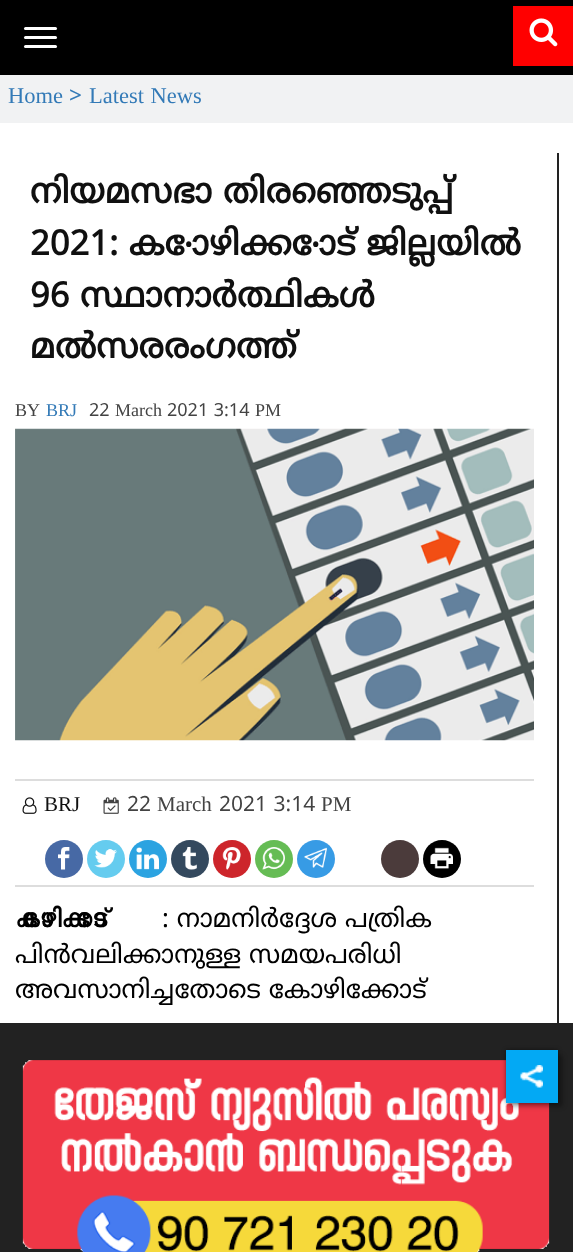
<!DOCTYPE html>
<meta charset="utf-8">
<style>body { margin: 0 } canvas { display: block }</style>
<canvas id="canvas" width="573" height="1252"></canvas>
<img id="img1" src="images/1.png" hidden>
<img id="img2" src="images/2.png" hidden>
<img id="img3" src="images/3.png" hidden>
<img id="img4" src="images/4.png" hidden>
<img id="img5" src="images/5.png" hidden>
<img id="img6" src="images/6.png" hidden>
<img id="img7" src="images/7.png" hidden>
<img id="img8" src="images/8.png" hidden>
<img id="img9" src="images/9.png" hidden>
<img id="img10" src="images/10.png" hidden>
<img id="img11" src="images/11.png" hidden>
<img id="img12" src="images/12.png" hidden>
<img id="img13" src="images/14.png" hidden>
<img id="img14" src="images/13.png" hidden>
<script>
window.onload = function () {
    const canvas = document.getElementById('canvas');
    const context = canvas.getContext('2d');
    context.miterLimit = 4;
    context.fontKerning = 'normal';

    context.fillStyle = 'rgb(34, 34, 34)';
    context.fillRect(0, 0, 573, 1252);
    context.fillStyle = 'rgb(0, 0, 0)';
    context.fillRect(0, 0, 573, 75);
    context.fillStyle = 'rgb(255, 255, 255)';
    context.beginPath();
    context.roundRect(24, 27, 33, 3, 1.5);
    context.fill();
    context.beginPath();
    context.roundRect(24, 36, 33, 3, 1.5);
    context.fill();
    context.beginPath();
    context.roundRect(24, 45, 33, 3, 1.5);
    context.fill();
    context.fillStyle = 'rgb(255, 0, 0)';
    context.fillRect(513, 6, 60, 60);
    context.drawImage(document.getElementById('img1'), 529, 18, 29, 29);
    context.fillStyle = 'rgb(255, 255, 255)';
    context.fillRect(0, 123, 573, 900);
    context.fillStyle = 'rgb(241, 242, 243)';
    context.fillRect(0, 75, 573, 48);
    context.fillStyle = 'rgb(34, 34, 34)';
    context.fillRect(557, 153, 2, 870);
    context.drawImage(document.getElementById('img2'), 15, 428, 519, 313);
    context.fillStyle = 'rgb(221, 221, 221)';
    context.fillRect(15, 779, 519, 2);
    context.fillRect(15, 885, 519, 2);
    context.drawImage(document.getElementById('img3'), 22, 797, 15, 17);
    context.drawImage(document.getElementById('img4'), 103, 797, 16, 17);
    context.fillStyle = 'rgb(71, 105, 165)';
    context.beginPath();
    context.arc(64, 859, 19, 0, 2 * Math.PI);
    context.fill();
    context.drawImage(document.getElementById('img5'), 58, 847, 12, 23);
    context.fillStyle = 'rgb(101, 204, 239)';
    context.beginPath();
    context.arc(106, 859, 19, 0, 2 * Math.PI);
    context.fill();
    context.drawImage(document.getElementById('img6'), 94, 849, 23, 19);
    context.fillStyle = 'rgb(43, 163, 225)';
    context.beginPath();
    context.arc(148, 859, 19, 0, 2 * Math.PI);
    context.fill();
    context.drawImage(document.getElementById('img7'), 136, 847, 23, 23);
    context.fillStyle = 'rgb(52, 73, 94)';
    context.beginPath();
    context.arc(190, 859, 19, 0, 2 * Math.PI);
    context.fill();
    context.drawImage(document.getElementById('img8'), 182, 847, 15, 23);
    context.fillStyle = 'rgb(205, 37, 43)';
    context.beginPath();
    context.arc(232, 859, 19, 0, 2 * Math.PI);
    context.fill();
    context.drawImage(document.getElementById('img9'), 222, 847, 19, 23);
    context.fillStyle = 'rgb(101, 188, 84)';
    context.beginPath();
    context.arc(274, 859, 19, 0, 2 * Math.PI);
    context.fill();
    context.drawImage(document.getElementById('img10'), 262, 847, 23, 23);
    context.fillStyle = 'rgb(55, 155, 229)';
    context.beginPath();
    context.arc(316, 859, 19, 0, 2 * Math.PI);
    context.fill();
    context.drawImage(document.getElementById('img11'), 304, 847, 23, 21);
    context.fillStyle = 'rgb(75, 59, 59)';
    context.beginPath();
    context.arc(400, 859, 19, 0, 2 * Math.PI);
    context.fill();
    context.fillStyle = 'rgb(0, 0, 0)';
    context.beginPath();
    context.arc(442, 859, 19, 0, 2 * Math.PI);
    context.fill();
    context.drawImage(document.getElementById('img12'), 430, 847, 23, 22);
    context.drawImage(document.getElementById('img13'), 22, 1060, 528, 192);
    context.fillStyle = 'rgba(0, 0, 0, 0.25)';
    context.filter = 'blur(2px)';
    context.beginPath();
    context.rect(510, 1055, 53, 52);
    context.fill();
    context.filter = 'none';
    context.fillStyle = 'rgba(0, 0, 0, 0.5)';
    context.filter = 'blur(2px)';
    context.beginPath();
    context.rect(506, 1050, 52, 53);
    context.fill();
    context.filter = 'none';
    context.fillStyle = 'rgb(3, 169, 244)';
    context.fillRect(506, 1050, 52, 53);
    context.drawImage(document.getElementById('img14'), 520, 1065, 23, 23);
    context.font = '22.5px Liberation Serif';
    context.fillStyle = 'rgb(51, 122, 183)';
    context.fillText('Home', 8, 103);
    context.font = '22.5px Noto Sans Malayalam';
    context.fillText('>', 69, 103);
    context.wordSpacing = '1px';
    context.font = '22.5px Liberation Serif';
    context.fillText('Latest News', 89, 103);
    context.wordSpacing = '0px';
    context.font = 'bold 34.5px Noto Sans Malayalam';
    context.fillStyle = 'rgb(16, 16, 16)';
    context.fillText('നിയമസഭാ തിരഞ്ഞെടുപ്പ്', 30, 203);
    context.fillText('2021: കോഴിക്കോട് ജില്ലയില്‍', 30, 255);
    context.fillText('96 സ്ഥാനാര്‍ത്ഥികള്‍', 30, 307);
    context.fillText('മല്‍സരരംഗത്ത്', 30, 358);
    context.font = '18px Liberation Serif';
    context.fillStyle = 'rgb(67, 67, 67)';
    context.fillText('BY', 15, 416);
    context.fillStyle = 'rgb(51, 122, 183)';
    context.fillText('BRJ', 46, 416);
    context.font = '18px Noto Sans Malayalam';
    context.fillStyle = 'rgb(67, 67, 67)';
    context.fillText('22', 89, 416);
    context.font = '18px Liberation Serif';
    context.fillText('March', 115, 416);
    context.font = '18px Noto Sans Malayalam';
    context.fillText('2021 3:14', 167, 416);
    context.font = '18px Liberation Serif';
    context.fillText('PM', 255, 416);
    context.font = '21px Liberation Serif';
    context.fillStyle = 'rgb(16, 16, 16)';
    context.fillText('BRJ', 44, 811);
    context.font = '21px Noto Sans Malayalam';
    context.fillStyle = 'rgb(67, 67, 67)';
    context.fillText('22', 127, 811);
    context.font = '21px Liberation Serif';
    context.fillText('March', 157, 811);
    context.font = '21px Noto Sans Malayalam';
    context.fillText('2021 3:14', 219, 811);
    context.font = '21px Liberation Serif';
    context.fillText('PM', 321, 811);
    context.font = 'bold 25.5px FreeSans';
    context.fillStyle = 'rgb(0, 0, 0)';
    context.fillText('കോഴിക്കോട്', 15, 927);
    context.font = '25.5px Noto Sans Malayalam';
    context.fillText(': നാമനിര്‍ദ്ദേശ പത്രിക', 162, 927);
    context.fillText('പിന്‍വലിക്കാനുള്ള സമയപരിധി', 15, 963);
    context.fillText('അവസാനിച്ചതോടെ കോഴിക്കോട്', 15, 998);
};
</script>
